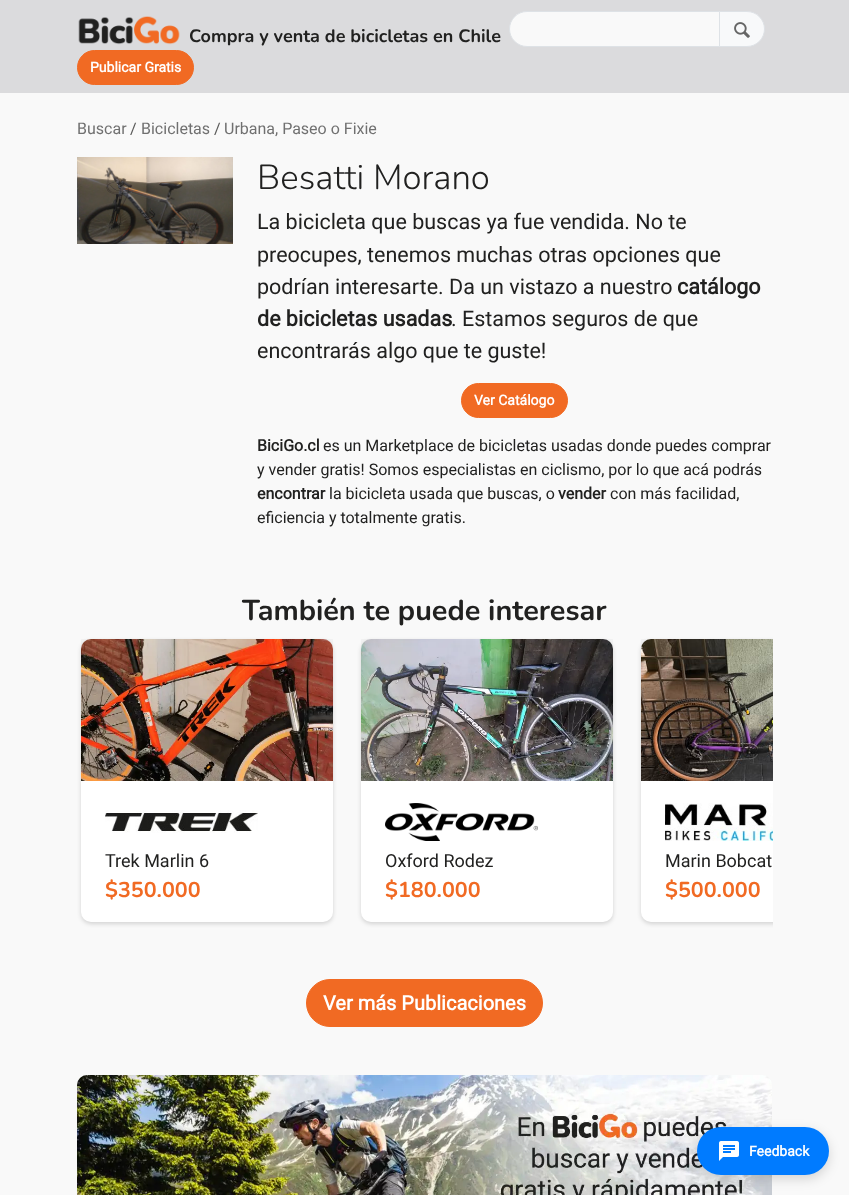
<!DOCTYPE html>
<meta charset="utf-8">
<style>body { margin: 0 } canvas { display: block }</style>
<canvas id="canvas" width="849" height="1195"></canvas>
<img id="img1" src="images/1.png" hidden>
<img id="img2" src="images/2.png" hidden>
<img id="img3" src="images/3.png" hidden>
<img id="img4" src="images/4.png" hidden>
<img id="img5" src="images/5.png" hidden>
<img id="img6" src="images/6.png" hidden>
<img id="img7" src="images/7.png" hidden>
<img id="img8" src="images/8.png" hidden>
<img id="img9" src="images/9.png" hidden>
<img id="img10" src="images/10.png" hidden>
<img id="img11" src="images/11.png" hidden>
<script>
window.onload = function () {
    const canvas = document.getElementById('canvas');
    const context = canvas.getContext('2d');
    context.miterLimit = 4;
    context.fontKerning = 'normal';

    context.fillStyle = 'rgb(249, 249, 249)';
    context.fillRect(0, 0, 849, 1195);
    context.fillStyle = 'rgb(219, 219, 221)';
    context.fillRect(0, 0, 849, 93);
    context.drawImage(document.getElementById('img1'), 78, 16, 102, 29);
    context.fillStyle = 'rgb(249, 249, 249)';
    context.beginPath();
    context.roundRect(509.5, 11.5, 210, 35, [17.5, 0, 0, 17.5]);
    context.fill();
    context.strokeStyle = 'rgb(222, 226, 230)';
    context.stroke();
    context.fillStyle = 'rgb(248, 249, 250)';
    context.beginPath();
    context.roundRect(719.5, 11.5, 45, 35, [0, 17.5, 17.5, 0]);
    context.fill();
    context.stroke();
    context.drawImage(document.getElementById('img2'), 734, 22, 16, 16);
    context.fillStyle = 'rgb(241, 106, 35)';
    context.beginPath();
    context.roundRect(77.5, 50.5, 116, 34, 17);
    context.fill();
    context.strokeStyle = 'rgb(241, 106, 35)';
    context.stroke();
    context.drawImage(document.getElementById('img3'), 77, 157, 156, 87);
    context.beginPath();
    context.roundRect(461.5, 383.5, 106, 34, 17);
    context.fill();
    context.stroke();
    context.fillStyle = 'rgba(0, 0, 0, 0.15)';
    context.filter = 'blur(2px)';
    context.beginPath();
    context.roundRect(81, 641, 252, 283, 10);
    context.fill();
    context.filter = 'none';
    context.fillStyle = 'rgb(255, 255, 255)';
    context.beginPath();
    context.roundRect(81, 639, 252, 283, 10);
    context.fill();
    context.fillStyle = 'rgba(33, 33, 32, 0.03)';
    context.fillRect(81, 639, 252, 10);
    context.drawImage(document.getElementById('img4'), 81, 639, 252, 142);
    context.drawImage(document.getElementById('img5'), 105, 810, 153, 23);
    context.fillStyle = 'rgba(0, 0, 0, 0.15)';
    context.filter = 'blur(2px)';
    context.beginPath();
    context.roundRect(361, 641, 252, 283, 10);
    context.fill();
    context.filter = 'none';
    context.fillStyle = 'rgb(255, 255, 255)';
    context.beginPath();
    context.roundRect(361, 639, 252, 283, 10);
    context.fill();
    context.fillStyle = 'rgba(33, 33, 32, 0.03)';
    context.fillRect(361, 639, 252, 10);
    context.drawImage(document.getElementById('img6'), 361, 639, 252, 142);
    context.drawImage(document.getElementById('img7'), 385, 803, 153, 38);
    context.save();
    context.beginPath();
    context.rect(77, 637, 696, 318);
    context.clip();
    context.fillStyle = 'rgba(0, 0, 0, 0.15)';
    context.filter = 'blur(2px)';
    context.beginPath();
    context.roundRect(641, 641, 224, 283, 10);
    context.fill();
    context.filter = 'none';
    context.restore();
    context.fillStyle = 'rgb(255, 255, 255)';
    context.beginPath();
    context.roundRect(641, 639, 132, 283, [10, 0, 0, 10]);
    context.fill();
    context.fillStyle = 'rgba(33, 33, 32, 0.03)';
    context.fillRect(641, 639, 10, 10);
    context.drawImage(document.getElementById('img8'), 641, 639, 132, 142);
    context.drawImage(document.getElementById('img9'), 665, 803, 108, 38);
    context.fillStyle = 'rgb(241, 106, 35)';
    context.beginPath();
    context.roundRect(306.5, 979.5, 236, 47, 23.5);
    context.fill();
    context.stroke();
    context.drawImage(document.getElementById('img10'), 77, 1075, 695, 120);
    context.fillStyle = 'rgba(0, 0, 0, 0.15)';
    context.filter = 'blur(6px)';
    context.beginPath();
    context.roundRect(697, 1131, 132, 48, 24);
    context.fill();
    context.filter = 'none';
    context.fillStyle = 'rgb(0, 123, 255)';
    context.beginPath();
    context.roundRect(697, 1127, 132, 48, 24);
    context.fill();
    context.drawImage(document.getElementById('img11'), 719, 1141, 20, 20);
    context.font = 'bold 18px Nunito';
    context.fillStyle = 'rgb(33, 33, 32)';
    context.fillText('Compra y venta de bicicletas en Chile', 189, 42);
    context.font = 'bold 14px Roboto';
    context.fillStyle = 'rgb(255, 255, 255)';
    context.fillText('Publicar Gratis', 90, 72);
    context.font = '16px Roboto';
    context.fillStyle = 'rgb(112, 112, 112)';
    context.fillText('Buscar', 77, 134);
    context.fillStyle = 'rgb(87, 87, 86)';
    context.fillText('/', 130, 134);
    context.fillStyle = 'rgb(112, 112, 112)';
    context.fillText('Bicicletas', 141, 134);
    context.fillStyle = 'rgb(87, 87, 86)';
    context.fillText('/', 214, 134);
    context.fillStyle = 'rgb(112, 112, 112)';
    context.fillText('Urbana, Paseo o Fixie', 224, 134);
    context.font = '300 34.75px Nunito';
    context.fillStyle = 'rgb(33, 33, 32)';
    context.fillText('Besatti Morano', 257, 189);
    context.font = '21.5px Roboto';
    context.fillText('La bicicleta que buscas ya fue vendida. No te', 257, 229);
    context.fillText('preocupes, tenemos muchas otras opciones que', 257, 262);
    context.fillText('podrían interesarte. Da un vistazo a nuestro', 257, 294);
    context.font = 'bold 21.5px Roboto';
    context.fillText('catálogo', 677, 294);
    context.fillText('de bicicletas usadas', 257, 326);
    context.font = '21.5px Roboto';
    context.fillText('. Estamos seguros de que', 451, 326);
    context.fillText('encontrarás algo que te guste!', 257, 358);
    context.font = 'bold 14px Roboto';
    context.fillStyle = 'rgb(255, 255, 255)';
    context.fillText('Ver Catálogo', 474, 405);
    context.font = 'bold 16px Roboto';
    context.fillStyle = 'rgb(33, 33, 32)';
    context.fillText('BiciGo.cl', 257, 451);
    context.font = '16px Roboto';
    context.fillText('es un Marketplace de bicicletas usadas donde puedes comprar', 323, 451);
    context.fillText('y vender gratis! Somos especialistas en ciclismo, por lo que acá podrás', 257, 475);
    context.font = 'bold 16px Roboto';
    context.fillText('encontrar', 257, 499);
    context.font = '16px Roboto';
    context.fillText('la bicicleta usada que buscas, o', 329, 499);
    context.font = 'bold 16px Roboto';
    context.fillText('vender', 558, 499);
    context.font = '16px Roboto';
    context.fillText('con más facilidad,', 610, 499);
    context.fillText('eficiencia y totalmente gratis.', 257, 523);
    context.font = 'bold 28.8px Nunito';
    context.fillText('También te puede interesar', 242, 620);
    context.font = '18px Roboto';
    context.fillText('Trek Marlin 6', 105, 867);
    context.font = 'bold 21.5px Nunito';
    context.fillStyle = 'rgb(241, 106, 35)';
    context.fillText('$350.000', 105, 897);
    context.font = '18px Roboto';
    context.fillStyle = 'rgb(33, 33, 32)';
    context.fillText('Oxford Rodez', 385, 867);
    context.font = 'bold 21.5px Nunito';
    context.fillStyle = 'rgb(241, 106, 35)';
    context.fillText('$180.000', 385, 897);
    context.font = '18px Roboto';
    context.fillStyle = 'rgb(33, 33, 32)';
    context.fillText('Marin Bobcat', 665, 867);
    context.font = 'bold 21.5px Nunito';
    context.fillStyle = 'rgb(241, 106, 35)';
    context.fillText('$500.000', 665, 897);
    context.font = 'bold 20px Roboto';
    context.fillStyle = 'rgb(255, 255, 255)';
    context.fillText('Ver más Publicaciones', 323, 1010);
    context.font = 'bold 14px Roboto';
    context.fillText('Feedback', 749, 1156);
};
</script>
